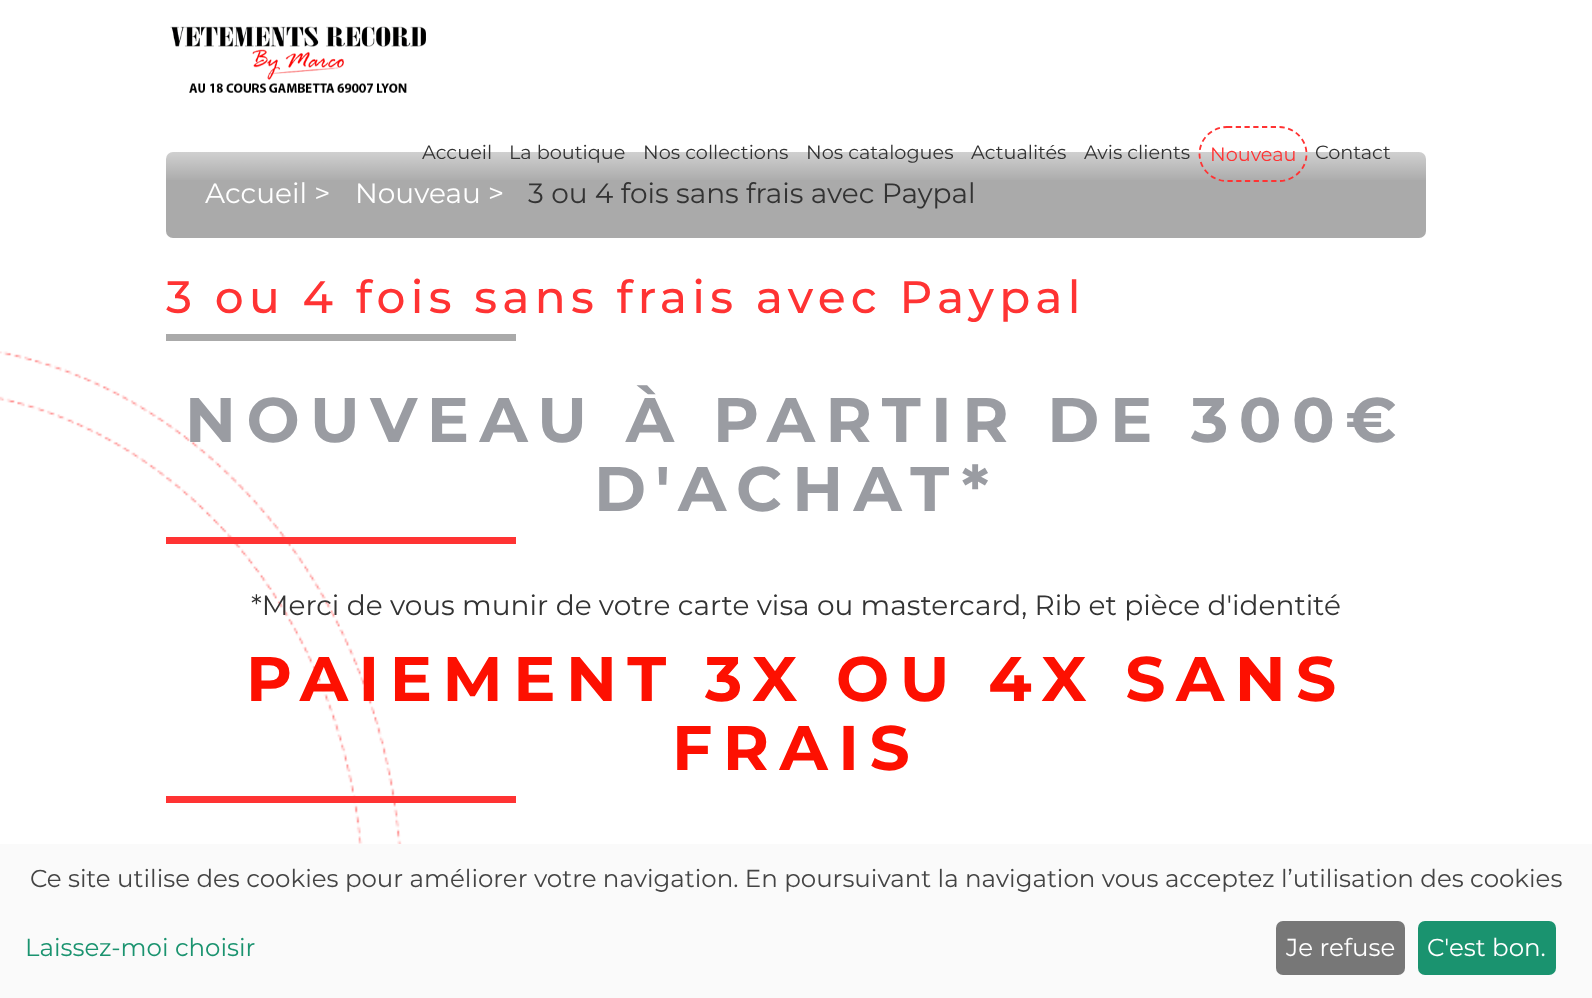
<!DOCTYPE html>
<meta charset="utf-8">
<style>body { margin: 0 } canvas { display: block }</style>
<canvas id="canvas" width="1592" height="998"></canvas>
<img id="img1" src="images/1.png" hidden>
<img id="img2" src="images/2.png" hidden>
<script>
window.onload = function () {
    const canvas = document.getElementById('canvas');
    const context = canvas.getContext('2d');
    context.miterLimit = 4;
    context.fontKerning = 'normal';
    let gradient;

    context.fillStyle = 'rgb(255, 255, 255)';
    context.fillRect(0, 0, 1592, 998);
    context.fillStyle = 'rgb(170, 170, 170)';
    context.beginPath();
    context.roundRect(166, 152, 1260, 86, 7);
    context.fill();
    gradient = context.createLinearGradient(796, 0, 796, 182);
    gradient.addColorStop(0, 'rgb(255, 255, 255)');
    gradient.addColorStop(0.33, 'rgba(255, 255, 255, 0.9)');
    gradient.addColorStop(0.67, 'rgba(255, 255, 255, 0.9)');
    gradient.addColorStop(1, 'rgba(255, 255, 255, 0)');
    context.fillStyle = gradient;
    context.fillRect(166, 152, 1260, 28);
    context.drawImage(document.getElementById('img1'), 170, 26, 256, 67);
    context.beginPath();
    context.moveTo(1227, 127);
    context.lineTo(1279, 127);
    context.bezierCurveTo(1294, 127, 1306.5, 139, 1306.5, 154);
    context.bezierCurveTo(1306.5, 169, 1294, 181, 1279, 181);
    context.lineTo(1227, 181);
    context.bezierCurveTo(1212, 181, 1199.5, 169, 1199.5, 154);
    context.bezierCurveTo(1199.5, 139, 1212, 127, 1227, 127);
    context.closePath();
    context.strokeStyle = 'rgb(255, 51, 51)';
    context.lineWidth = 1.8;
    context.setLineDash([5.25, 3.5]);
    context.stroke();
    context.drawImage(document.getElementById('img2'), 0, 351, 402, 493);
    context.fillStyle = 'rgb(170, 170, 170)';
    context.fillRect(166, 334, 350, 7);
    context.fillStyle = 'rgb(255, 51, 51)';
    context.fillRect(166, 537, 350, 7);
    context.fillRect(166, 796, 350, 7);
    context.fillStyle = 'rgb(250, 250, 250)';
    context.fillRect(0, 844, 1592, 154);
    context.fillStyle = 'rgb(119, 119, 119)';
    context.beginPath();
    context.roundRect(1276, 921, 129, 54, 7);
    context.fill();
    context.fillStyle = 'rgb(26, 147, 111)';
    context.beginPath();
    context.roundRect(1418, 921, 138, 54, 7);
    context.fill();
    context.font = '19.25px Montserrat';
    context.fillStyle = 'rgb(51, 51, 51)';
    context.fillText('Accueil', 422, 159);
    context.fillText('La boutique', 509, 159);
    context.fillText('Nos collections', 643, 159);
    context.fillText('Nos catalogues', 806, 159);
    context.fillText('Actualités', 971, 159);
    context.fillText('Avis clients', 1084, 159);
    context.fillStyle = 'rgb(255, 51, 51)';
    context.fillText('Nouveau', 1210, 161);
    context.fillStyle = 'rgb(51, 51, 51)';
    context.fillText('Contact', 1315, 159);
    context.font = '28px Montserrat';
    context.fillStyle = 'rgb(255, 255, 255)';
    context.fillText('Accueil >', 205, 203);
    context.fillText('Nouveau >', 355, 203);
    context.fillStyle = 'rgb(51, 51, 51)';
    context.fillText('3 ou 4 fois sans frais avec Paypal', 528, 203);
    context.letterSpacing = '5.25px';
    context.font = '500 45.5px Montserrat';
    context.fillStyle = 'rgb(255, 51, 51)';
    context.fillText('3 ou 4 fois sans frais avec Paypal', 166, 313);
    context.letterSpacing = '10.5px';
    context.font = 'bold 63px Montserrat';
    context.fillStyle = 'rgb(154, 156, 162)';
    context.fillText('NOUVEAU À PARTIR DE 300€', 185, 442);
    context.fillText('D\'ACHAT*', 594, 511);
    context.letterSpacing = '0px';
    context.font = '28px Montserrat';
    context.fillStyle = 'rgb(51, 51, 51)';
    context.fillText('*Merci de vous munir de votre carte visa ou mastercard, Rib et pièce d\'identité', 251, 615);
    context.letterSpacing = '10.5px';
    context.font = 'bold 63px Montserrat';
    context.fillStyle = 'rgb(253, 16, 1)';
    context.fillText('PAIEMENT 3X OU 4X SANS', 246, 701);
    context.fillText('FRAIS', 672, 770);
    context.letterSpacing = '0px';
    context.font = '24.5px Montserrat';
    context.fillStyle = 'rgb(68, 68, 68)';
    context.fillText('Ce site utilise des cookies pour améliorer votre navigation. En poursuivant la navigation vous acceptez l’utilisation des cookies', 30, 887);
    context.fillStyle = 'rgb(26, 147, 111)';
    context.fillText('Laissez-moi choisir', 25, 956);
    context.fillStyle = 'rgb(255, 255, 255)';
    context.fillText('Je refuse', 1286, 956);
    context.fillText('C\'est bon.', 1427, 956);
};
</script>
